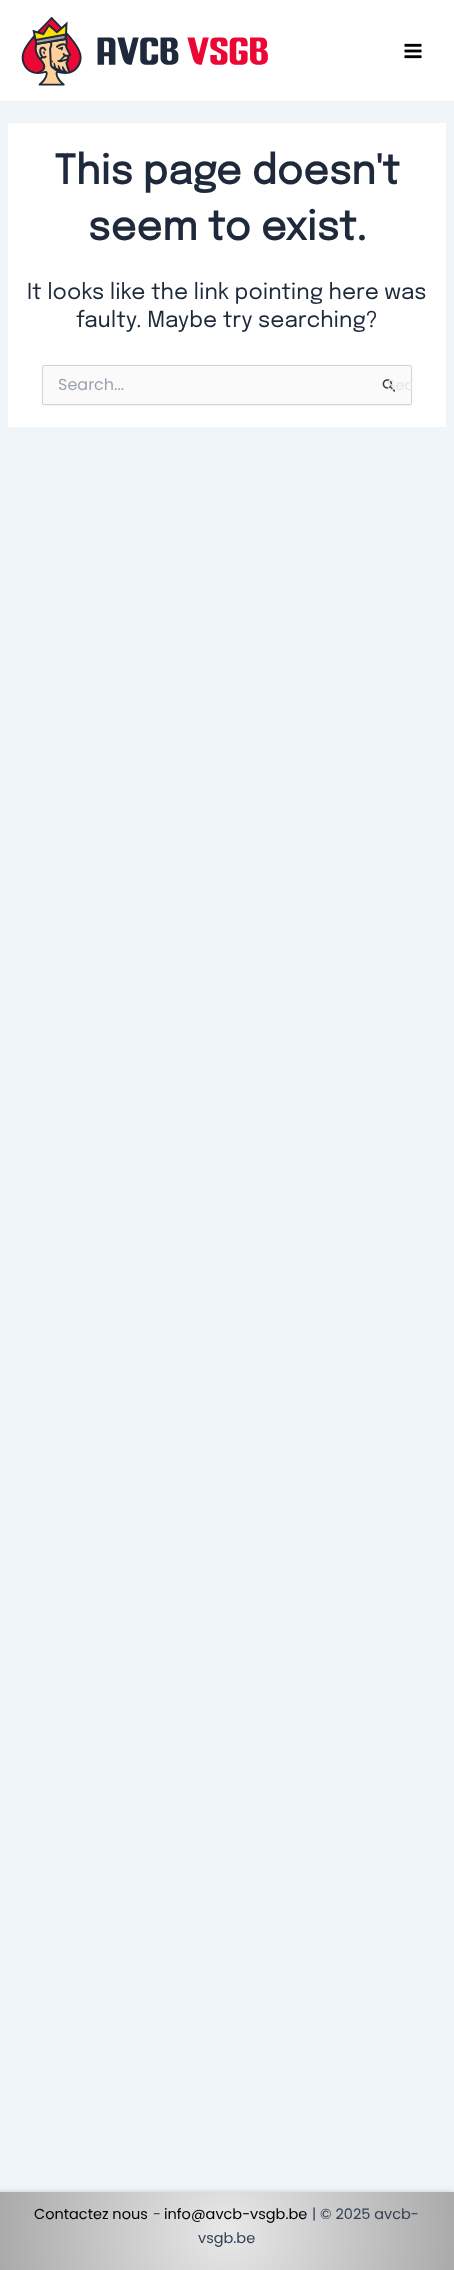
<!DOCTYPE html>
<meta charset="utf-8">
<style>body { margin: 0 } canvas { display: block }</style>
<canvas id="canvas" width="454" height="2270"></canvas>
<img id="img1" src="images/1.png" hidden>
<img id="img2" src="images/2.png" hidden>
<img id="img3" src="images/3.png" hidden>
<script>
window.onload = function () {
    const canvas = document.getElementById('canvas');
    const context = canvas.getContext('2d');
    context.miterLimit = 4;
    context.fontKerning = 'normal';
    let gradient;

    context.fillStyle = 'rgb(240, 245, 250)';
    context.fillRect(0, 0, 454, 2270);
    context.fillStyle = 'rgb(255, 255, 255)';
    context.fillRect(0, 0, 454, 101);
    context.drawImage(document.getElementById('img1'), 21, 17, 247, 69);
    context.drawImage(document.getElementById('img2'), 404, 43, 18, 16);
    context.fillRect(8, 123, 438, 304);
    context.fillStyle = 'rgba(0, 0, 0, 0.05)';
    context.filter = 'blur(1px)';
    context.beginPath();
    context.roundRect(42, 366, 370, 40, 2);
    context.fill();
    context.filter = 'none';
    context.fillStyle = 'rgb(250, 250, 250)';
    context.beginPath();
    context.roundRect(42.5, 365.5, 369, 39, 1.5);
    context.fill();
    context.strokeStyle = 'rgb(209, 213, 219)';
    context.stroke();
    context.drawImage(document.getElementById('img3'), 382, 379, 13, 13);
    context.fillStyle = 'rgba(168, 168, 168, 0.75)';
    context.filter = 'blur(3px)';
    context.beginPath();
    context.rect(-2, 2193, 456, 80);
    context.fill();
    context.filter = 'none';
    gradient = context.createRadialGradient(227, 2231, 0, 227, 2231, 230);
    gradient.addColorStop(0, 'rgb(232, 232, 232)');
    gradient.addColorStop(1, 'rgb(170, 170, 170)');
    context.fillStyle = gradient;
    context.fillRect(0, 2192, 454, 78);
    context.font = 'bold 40px Epilogue';
    context.fillStyle = 'rgb(30, 41, 59)';
    context.fillText('This page doesn\'t', 54, 184);
    context.fillText('seem to exist.', 88, 240);
    context.font = '21.9px Epilogue';
    context.fillText('It looks like the link pointing here was', 27, 299);
    context.fillText('faulty. Maybe try searching?', 76, 327);
    context.font = '16px Poppins';
    context.fillStyle = 'rgb(156, 163, 175)';
    context.fillText('Search...', 58, 390);
    context.save();
    context.beginPath();
    context.roundRect(367, 365, 45, 40, 2);
    context.clip();
    context.font = '14.5px Poppins';
    context.fillStyle = 'rgb(230, 230, 231)';
    context.fillText('Sea', 387, 390);
    context.restore();
    context.font = '14.5px Poppins';
    context.fillStyle = 'rgb(0, 0, 0)';
    context.fillText('Contactez nous', 34, 2219);
    context.fillStyle = 'rgb(51, 65, 85)';
    context.fillText('-', 153, 2219);
    context.fillStyle = 'rgb(0, 0, 0)';
    context.fillText('info@avcb-vsgb.be', 164, 2219);
    context.fillStyle = 'rgb(51, 65, 85)';
    context.fillText('| © 2025 avcb-', 312, 2219);
    context.fillText('vsgb.be', 198, 2243);
};
</script>
